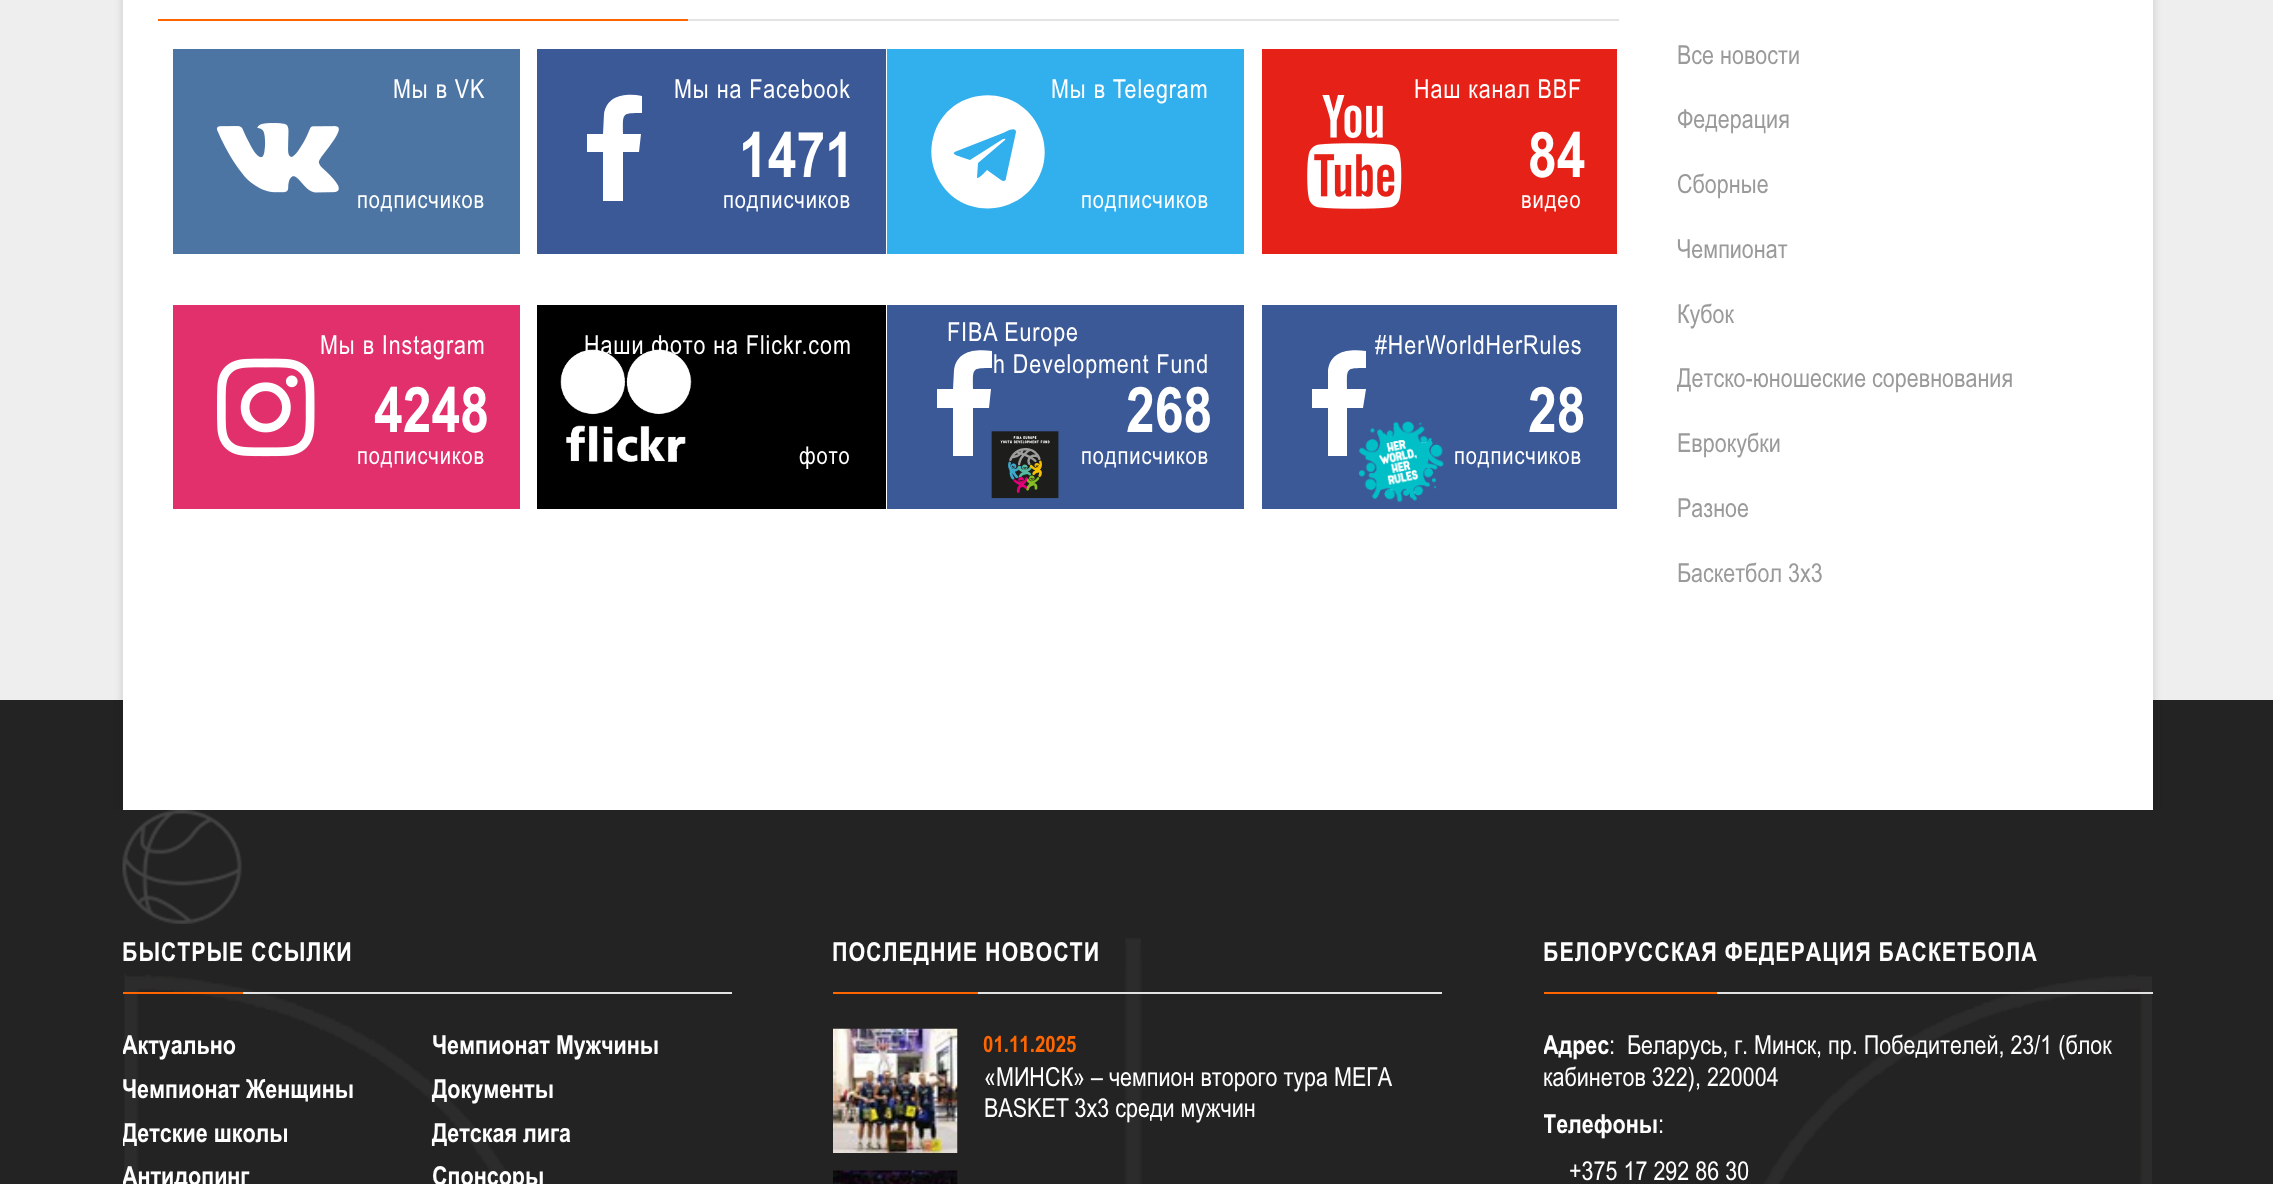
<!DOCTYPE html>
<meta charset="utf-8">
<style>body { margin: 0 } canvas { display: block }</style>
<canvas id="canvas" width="2273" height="1184"></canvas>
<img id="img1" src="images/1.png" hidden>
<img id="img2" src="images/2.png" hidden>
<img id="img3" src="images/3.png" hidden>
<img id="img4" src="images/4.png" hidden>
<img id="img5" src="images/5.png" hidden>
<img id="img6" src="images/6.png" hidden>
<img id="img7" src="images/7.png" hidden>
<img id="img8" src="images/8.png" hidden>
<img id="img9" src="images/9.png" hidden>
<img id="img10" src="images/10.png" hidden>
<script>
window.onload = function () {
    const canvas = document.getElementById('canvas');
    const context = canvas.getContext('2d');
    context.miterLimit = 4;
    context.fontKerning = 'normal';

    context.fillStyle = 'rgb(238, 238, 238)';
    context.fillRect(0, 0, 2273, 1184);
    context.fillStyle = 'rgb(35, 35, 35)';
    context.fillRect(0, 700, 2273, 110);
    context.fillStyle = 'rgba(0, 0, 0, 0.15)';
    context.filter = 'blur(4.5px)';
    context.beginPath();
    context.rect(123, -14, 2030, 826);
    context.fill();
    context.filter = 'none';
    context.fillStyle = 'rgb(255, 255, 255)';
    context.fillRect(123, 0, 2030, 810);
    context.fillStyle = 'rgb(227, 227, 227)';
    context.fillRect(688, 19, 931, 2);
    context.fillStyle = 'rgb(255, 102, 0)';
    context.fillRect(158, 19, 530, 2);
    context.fillStyle = 'rgb(76, 117, 163)';
    context.fillRect(173, 49, 347, 205);
    context.drawImage(document.getElementById('img1'), 216, 123, 123, 70);
    context.fillStyle = 'rgb(59, 89, 151)';
    context.fillRect(537, 49, 349, 205);
    context.fillStyle = 'rgb(255, 255, 255)';
    context.beginPath();
    context.moveTo(642, 96);
    context.lineTo(642, 113);
    context.bezierCurveTo(621, 113, 623, 113, 623, 134);
    context.lineTo(641, 134);
    context.lineTo(639, 152);
    context.lineTo(623, 152);
    context.lineTo(623, 201);
    context.lineTo(603, 201);
    context.lineTo(603, 152);
    context.lineTo(587, 152);
    context.lineTo(587, 134);
    context.lineTo(603, 134);
    context.lineTo(604, 114);
    context.bezierCurveTo(607, 95, 626, 93, 642, 96);
    context.closePath();
    context.fill();
    context.fillStyle = 'rgb(225, 48, 108)';
    context.fillRect(173, 305, 347, 204);
    context.drawImage(document.getElementById('img2'), 217, 358, 98, 99);
    context.fillStyle = 'rgb(0, 0, 0)';
    context.fillRect(537, 305, 349, 204);
    context.drawImage(document.getElementById('img3'), 560, 349, 132, 113);
    context.fillStyle = 'rgb(50, 175, 237)';
    context.fillRect(887, 49, 357, 205);
    context.fillStyle = 'rgb(255, 255, 255)';
    context.beginPath();
    context.moveTo(1006, 178);
    context.lineTo(1016, 132);
    context.bezierCurveTo(1016, 125, 1003, 133, 1003, 133);
    context.lineTo(957, 151);
    context.bezierCurveTo(949, 154, 959, 156, 961, 157);
    context.lineTo(970, 160);
    context.lineTo(1003, 139);
    context.bezierCurveTo(1004, 139, 1006, 138, 1005, 140);
    context.lineTo(978, 163);
    context.lineTo(977, 178);
    context.bezierCurveTo(980, 178, 985, 172, 987, 170);
    context.lineTo(1001, 180);
    context.bezierCurveTo(1004, 182, 1006, 181, 1006, 178);
    context.closePath();
    context.moveTo(1040, 130);
    context.bezierCurveTo(1045, 141, 1046, 154, 1043, 166);
    context.bezierCurveTo(1029, 218, 957, 224, 936, 174);
    context.bezierCurveTo(931, 163, 930, 150, 933, 138);
    context.bezierCurveTo(946, 85, 1019, 80, 1040, 130);
    context.closePath();
    context.fill();
    context.fillStyle = 'rgb(230, 33, 23)';
    context.fillRect(1262, 49, 355, 205);
    context.drawImage(document.getElementById('img4'), 1307, 95, 95, 114);
    context.fillStyle = 'rgb(59, 89, 151)';
    context.fillRect(887, 305, 357, 204);
    context.fillStyle = 'rgb(255, 255, 255)';
    context.beginPath();
    context.moveTo(992, 351);
    context.lineTo(992, 368);
    context.bezierCurveTo(971, 368, 973, 368, 973, 389);
    context.lineTo(991, 389);
    context.lineTo(989, 408);
    context.lineTo(973, 408);
    context.lineTo(973, 456);
    context.lineTo(953, 456);
    context.lineTo(953, 408);
    context.lineTo(937, 408);
    context.lineTo(937, 389);
    context.lineTo(953, 389);
    context.lineTo(954, 370);
    context.bezierCurveTo(957, 350, 976, 349, 992, 351);
    context.closePath();
    context.fill();
    context.drawImage(document.getElementById('img5'), 991, 431, 68, 68);
    context.fillStyle = 'rgb(59, 89, 151)';
    context.fillRect(1262, 305, 355, 204);
    context.fillStyle = 'rgb(255, 255, 255)';
    context.beginPath();
    context.moveTo(1366, 351);
    context.lineTo(1366, 368);
    context.bezierCurveTo(1345, 368, 1347, 368, 1347, 389);
    context.lineTo(1366, 389);
    context.lineTo(1363, 408);
    context.lineTo(1347, 408);
    context.lineTo(1347, 456);
    context.lineTo(1328, 456);
    context.lineTo(1328, 408);
    context.lineTo(1312, 408);
    context.lineTo(1312, 389);
    context.lineTo(1328, 389);
    context.lineTo(1328, 370);
    context.bezierCurveTo(1331, 350, 1350, 349, 1366, 351);
    context.closePath();
    context.fill();
    context.drawImage(document.getElementById('img6'), 1358, 421, 86, 81);
    context.fillStyle = 'rgb(35, 35, 35)';
    context.fillRect(0, 810, 2273, 374);
    context.drawImage(document.getElementById('img7'), 124, 938, 2028, 246);
    context.drawImage(document.getElementById('img8'), 122, 810, 120, 114);
    context.fillStyle = 'rgb(227, 227, 227)';
    context.fillRect(243, 992, 489, 2);
    context.fillStyle = 'rgb(255, 102, 0)';
    context.fillRect(123, 992, 120, 2);
    context.fillStyle = 'rgb(227, 227, 227)';
    context.fillRect(978, 992, 464, 2);
    context.fillStyle = 'rgb(255, 102, 0)';
    context.fillRect(833, 992, 145, 2);
    context.drawImage(document.getElementById('img9'), 833, 1028, 125, 125);
    context.drawImage(document.getElementById('img10'), 833, 1170, 125, 14);
    context.fillStyle = 'rgb(227, 227, 227)';
    context.fillRect(1717, 992, 436, 2);
    context.fillStyle = 'rgb(255, 102, 0)';
    context.fillRect(1544, 992, 173, 2);
    context.letterSpacing = '0.9px';
    context.font = '26.25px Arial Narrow';
    context.fillStyle = 'rgb(255, 255, 255)';
    context.fillText('Мы в VK', 393, 98);
    context.font = '24.5px Arial Narrow';
    context.fillText('подписчиков', 357, 208);
    context.font = '26.25px Arial Narrow';
    context.fillText('Мы на Facebook', 674, 98);
    context.letterSpacing = '0px';
    context.font = 'bold 63px Arial Narrow';
    context.fillText('1471', 739, 177);
    context.letterSpacing = '0.9px';
    context.font = '24.5px Arial Narrow';
    context.fillText('подписчиков', 723, 208);
    context.font = '26.25px Arial Narrow';
    context.fillText('Мы в Instagram', 320, 354);
    context.letterSpacing = '0px';
    context.font = 'bold 63px Arial Narrow';
    context.fillText('4248', 374, 432);
    context.letterSpacing = '0.9px';
    context.font = '24.5px Arial Narrow';
    context.fillText('подписчиков', 357, 464);
    context.font = '26.25px Arial Narrow';
    context.fillText('Наши фото на Flickr.com', 584, 354);
    context.font = '24.5px Arial Narrow';
    context.fillText('фото', 799, 464);
    context.font = '26.25px Arial Narrow';
    context.fillText('Мы в Telegram', 1051, 98);
    context.font = '24.5px Arial Narrow';
    context.fillText('подписчиков', 1081, 208);
    context.font = '26.25px Arial Narrow';
    context.fillText('Наш канал BBF', 1414, 98);
    context.letterSpacing = '0px';
    context.font = 'bold 63px Arial Narrow';
    context.fillText('84', 1528, 177);
    context.letterSpacing = '0.9px';
    context.font = '24.5px Arial Narrow';
    context.fillText('видео', 1521, 208);
    context.font = '26.25px Arial Narrow';
    context.fillText('FIBA Europe', 947, 341);
    context.fillText('h Development Fund', 993, 373);
    context.letterSpacing = '0px';
    context.font = 'bold 63px Arial Narrow';
    context.fillText('268', 1126, 432);
    context.letterSpacing = '0.9px';
    context.font = '24.5px Arial Narrow';
    context.fillText('подписчиков', 1081, 464);
    context.font = '26.25px Arial Narrow';
    context.fillText('#HerWorldHerRules', 1375, 354);
    context.letterSpacing = '0px';
    context.font = 'bold 63px Arial Narrow';
    context.fillText('28', 1528, 432);
    context.letterSpacing = '0.9px';
    context.font = '24.5px Arial Narrow';
    context.fillText('подписчиков', 1454, 464);
    context.letterSpacing = '0px';
    context.font = '26.25px Arial Narrow';
    context.fillStyle = 'rgb(154, 154, 154)';
    context.fillText('Все новости', 1677, 64);
    context.fillText('Федерация', 1677, 128);
    context.fillText('Сборные', 1677, 193);
    context.fillText('Чемпионат', 1677, 258);
    context.fillText('Кубок', 1677, 323);
    context.fillText('Детско-юношеские соревнования', 1677, 387);
    context.fillText('Еврокубки', 1677, 452);
    context.fillText('Разное', 1677, 517);
    context.fillText('Баскетбол 3х3', 1677, 582);
    context.letterSpacing = '0.9px';
    context.font = 'bold 26.25px Arial Narrow';
    context.fillStyle = 'rgb(255, 255, 255)';
    context.fillText('БЫСТРЫЕ ССЫЛКИ', 122, 961);
    context.save();
    context.beginPath();
    context.rect(123, 933, 609, 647);
    context.clip();
    context.letterSpacing = '0px';
    context.fillText('Актуально', 122, 1054);
    context.restore();
    context.letterSpacing = '0px';
    context.fillText('Чемпионат Мужчины', 432, 1054);
    context.save();
    context.beginPath();
    context.rect(123, 933, 609, 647);
    context.clip();
    context.fillText('Чемпионат Женщины', 122, 1098);
    context.restore();
    context.fillText('Документы', 432, 1098);
    context.save();
    context.beginPath();
    context.rect(123, 933, 609, 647);
    context.clip();
    context.fillText('Детские школы', 122, 1142);
    context.restore();
    context.fillText('Детская лига', 432, 1142);
    context.save();
    context.beginPath();
    context.rect(123, 933, 609, 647);
    context.clip();
    context.fillText('Антидопинг', 122, 1185);
    context.restore();
    context.fillText('Спонсоры', 432, 1185);
    context.letterSpacing = '0.9px';
    context.fillText('ПОСЛЕДНИЕ НОВОСТИ', 832, 961);
    context.letterSpacing = '0px';
    context.font = 'bold 22.75px Arial Narrow';
    context.fillStyle = 'rgb(255, 102, 0)';
    context.fillText('01.11.2025', 983, 1052);
    context.font = '26.25px Arial Narrow';
    context.fillStyle = 'rgb(255, 255, 255)';
    context.fillText('«МИНСК» – чемпион второго тура МЕГА', 984, 1086);
    context.fillText('BASKET 3x3 среди мужчин', 984, 1117);
    context.letterSpacing = '0.9px';
    context.font = 'bold 26.25px Arial Narrow';
    context.fillText('БЕЛОРУССКАЯ ФЕДЕРАЦИЯ БАСКЕТБОЛА', 1543, 961);
    context.save();
    context.beginPath();
    context.rect(1544, 933, 609, 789);
    context.clip();
    context.letterSpacing = '0px';
    context.fillText('Адрес', 1543, 1054);
    context.restore();
    context.letterSpacing = '0px';
    context.font = '26.25px Arial Narrow';
    context.fillText(':  Беларусь, г. Минск, пр. Победителей, 23/1 (блок', 1609, 1054);
    context.fillText('кабинетов 322), 220004', 1543, 1086);
    context.save();
    context.beginPath();
    context.rect(1544, 933, 609, 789);
    context.clip();
    context.font = 'bold 26.25px Arial Narrow';
    context.fillText('Телефоны', 1543, 1133);
    context.restore();
    context.fillText(':', 1658, 1133);
    context.fillText('+375 17 292 86 30', 1569, 1180);
};
</script>
